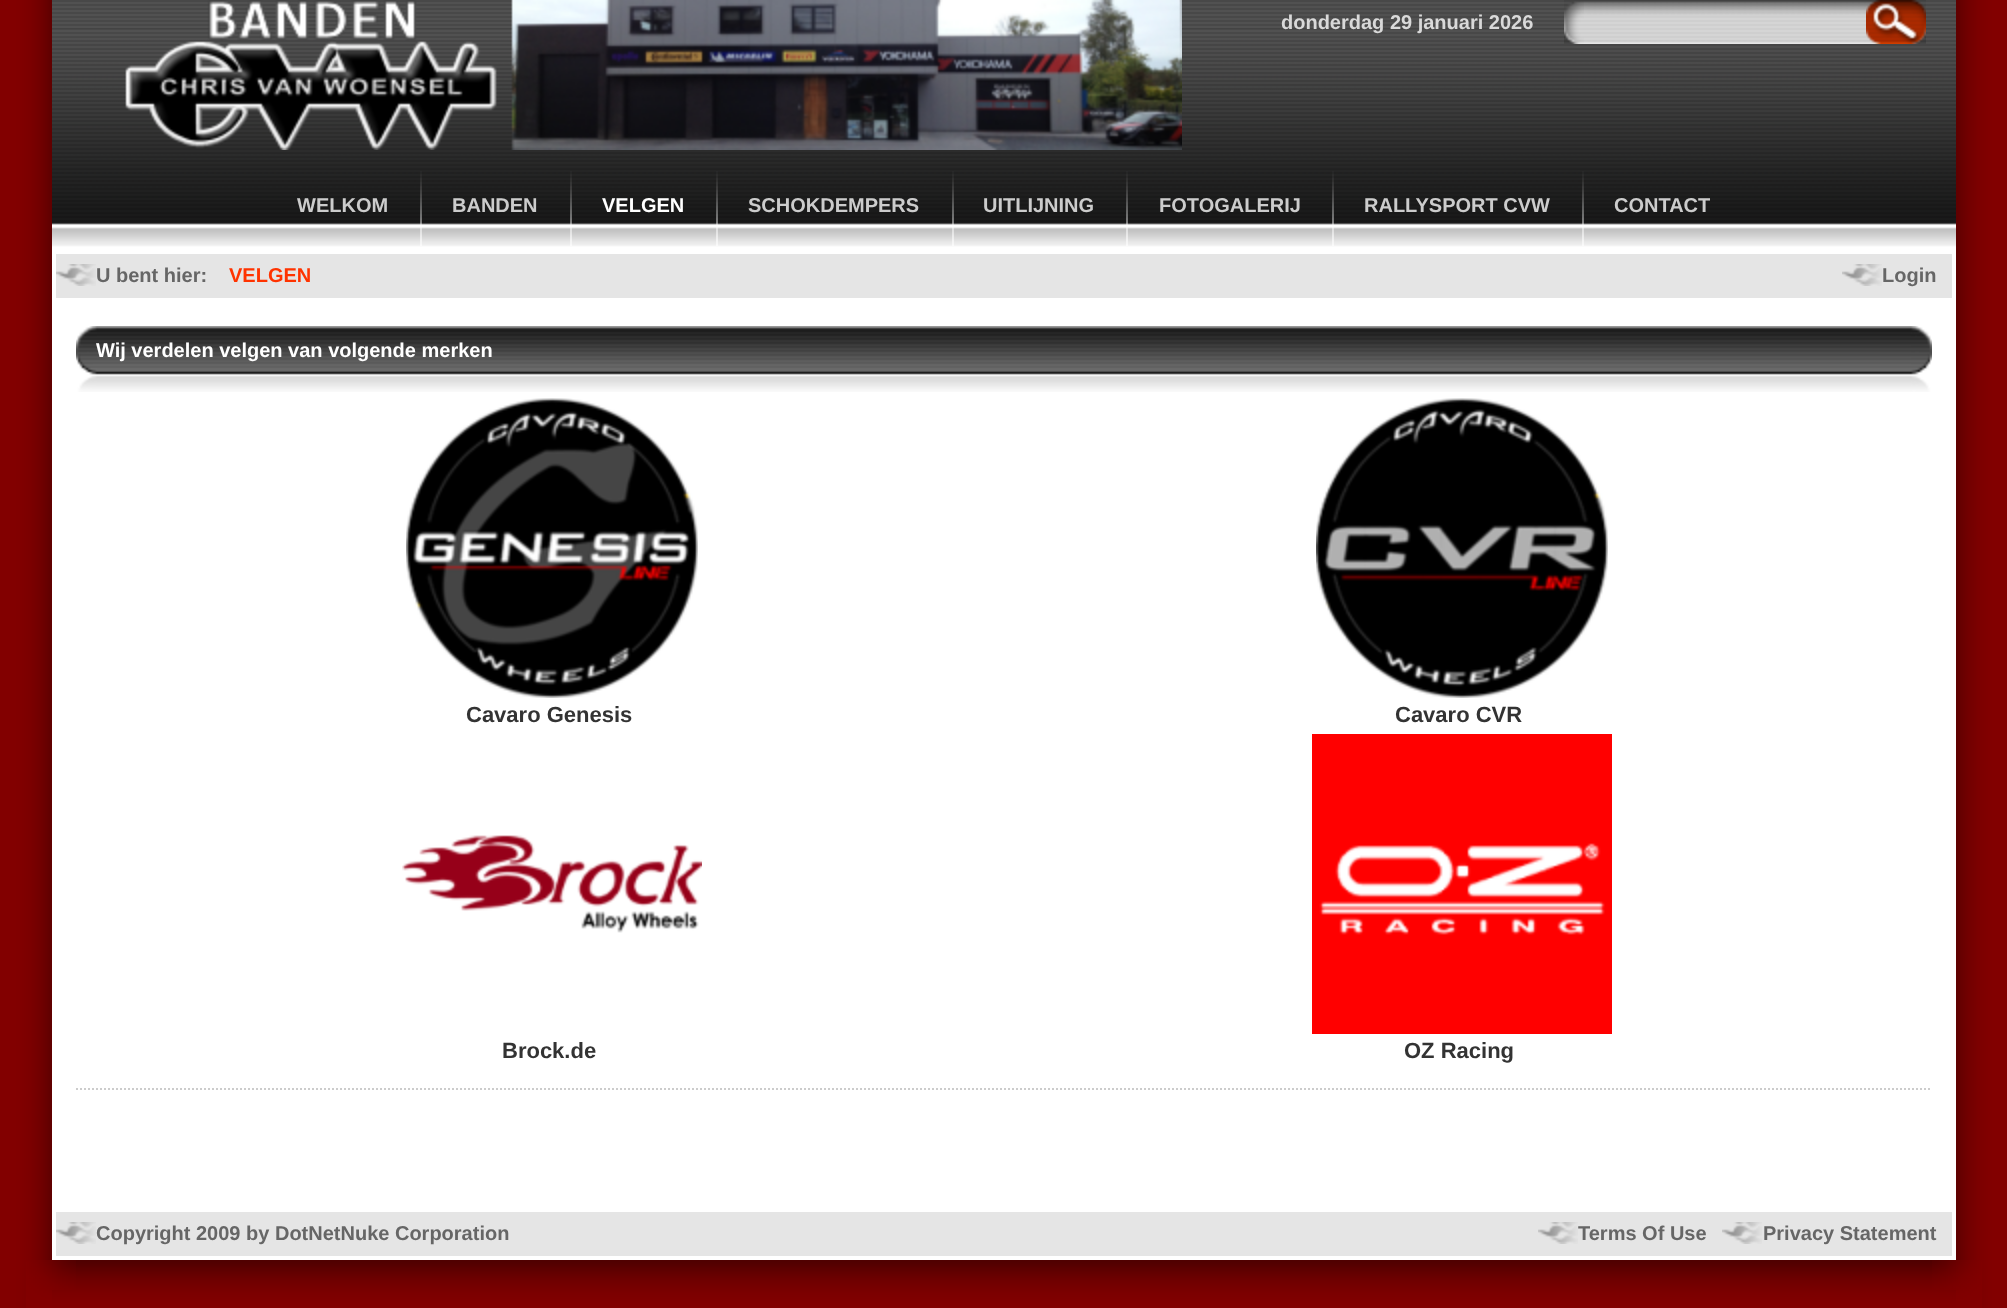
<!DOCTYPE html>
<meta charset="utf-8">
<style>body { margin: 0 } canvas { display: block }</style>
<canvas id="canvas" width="2007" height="1308"></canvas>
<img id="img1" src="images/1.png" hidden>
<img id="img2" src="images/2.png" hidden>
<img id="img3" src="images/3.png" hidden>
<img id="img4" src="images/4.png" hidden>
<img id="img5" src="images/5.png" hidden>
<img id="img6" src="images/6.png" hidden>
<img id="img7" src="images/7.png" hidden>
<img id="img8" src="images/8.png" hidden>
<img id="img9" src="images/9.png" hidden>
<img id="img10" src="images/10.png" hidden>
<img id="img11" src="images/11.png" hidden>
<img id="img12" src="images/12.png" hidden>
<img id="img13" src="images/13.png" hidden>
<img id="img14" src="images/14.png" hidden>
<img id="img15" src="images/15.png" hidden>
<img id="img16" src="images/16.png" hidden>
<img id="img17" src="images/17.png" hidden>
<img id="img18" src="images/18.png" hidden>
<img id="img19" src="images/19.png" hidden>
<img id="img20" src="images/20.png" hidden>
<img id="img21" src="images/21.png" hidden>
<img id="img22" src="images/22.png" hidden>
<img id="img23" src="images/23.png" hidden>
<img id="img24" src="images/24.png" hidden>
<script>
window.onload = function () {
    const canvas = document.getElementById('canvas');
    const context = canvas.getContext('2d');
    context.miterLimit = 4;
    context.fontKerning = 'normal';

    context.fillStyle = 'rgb(130, 0, 0)';
    context.fillRect(0, 0, 2007, 1308);
    context.fillStyle = 'rgb(255, 255, 255)';
    context.fillRect(52, 250, 1904, 1010);
    context.drawImage(document.getElementById('img1'), 4, 0, 48, 1260);
    context.drawImage(document.getElementById('img2'), 52, 0, 1904, 28);
    context.drawImage(document.getElementById('img3'), 52, 28, 1904, 222);
    context.drawImage(document.getElementById('img4'), 125, 0, 1057, 150);
    context.drawImage(document.getElementById('img5'), 1564, 0, 302, 44);
    context.drawImage(document.getElementById('img6'), 1564, 1, 20, 43);
    context.drawImage(document.getElementById('img7'), 1866, 0, 60, 44);
    context.drawImage(document.getElementById('img8'), 420, 171, 2, 75);
    context.drawImage(document.getElementById('img8'), 570, 171, 2, 75);
    context.drawImage(document.getElementById('img8'), 716, 171, 2, 75);
    context.drawImage(document.getElementById('img8'), 952, 171, 2, 75);
    context.drawImage(document.getElementById('img8'), 1126, 171, 2, 75);
    context.drawImage(document.getElementById('img8'), 1332, 171, 2, 75);
    context.drawImage(document.getElementById('img8'), 1582, 171, 2, 75);
    context.fillStyle = 'rgb(229, 229, 229)';
    context.fillRect(56, 254, 1896, 44);
    context.drawImage(document.getElementById('img9'), 56, 264, 40, 22);
    context.drawImage(document.getElementById('img9'), 1842, 264, 40, 22);
    context.beginPath();
    context.moveTo(76, 1089);
    context.lineTo(1932, 1089);
    context.strokeStyle = 'rgb(204, 204, 204)';
    context.lineWidth = 2;
    context.setLineDash([2, 2]);
    context.stroke();
    context.drawImage(document.getElementById('img10'), 97, 326, 1814, 66);
    context.drawImage(document.getElementById('img11'), 76, 326, 21, 66);
    context.drawImage(document.getElementById('img12'), 1911, 326, 21, 66);
    context.drawImage(document.getElementById('img13'), 406, 398, 292, 300);
    context.drawImage(document.getElementById('img14'), 1316, 398, 292, 300);
    context.drawImage(document.getElementById('img15'), 402, 835, 300, 98);
    context.drawImage(document.getElementById('img16'), 1312, 734, 300, 300);
    context.fillRect(56, 1212, 1896, 44);
    context.drawImage(document.getElementById('img9'), 56, 1222, 40, 22);
    context.drawImage(document.getElementById('img9'), 1538, 1222, 40, 22);
    context.drawImage(document.getElementById('img9'), 1722, 1222, 40, 22);
    context.drawImage(document.getElementById('img17'), 1956, 0, 48, 1260);
    context.drawImage(document.getElementById('img18'), 4, 1260, 22, 48);
    context.drawImage(document.getElementById('img19'), 26, 1260, 26, 48);
    context.drawImage(document.getElementById('img20'), 52, 1260, 1904, 48);
    context.drawImage(document.getElementById('img21'), 52, 1260, 24, 30);
    context.drawImage(document.getElementById('img22'), 1932, 1260, 24, 30);
    context.drawImage(document.getElementById('img23'), 1982, 1260, 22, 48);
    context.drawImage(document.getElementById('img24'), 1956, 1260, 26, 48);
    context.font = 'bold 20px Liberation Sans';
    context.fillStyle = 'rgb(217, 217, 217)';
    context.fillText('donderdag 29 januari 2026', 1281, 29);
    context.fillStyle = 'rgb(204, 204, 204)';
    context.fillText('WELKOM', 297, 212);
    context.fillText('BANDEN', 452, 212);
    context.fillStyle = 'rgb(255, 255, 255)';
    context.fillText('VELGEN', 602, 212);
    context.fillStyle = 'rgb(204, 204, 204)';
    context.fillText('SCHOKDEMPERS', 748, 212);
    context.fillText('UITLIJNING', 983, 212);
    context.fillText('FOTOGALERIJ', 1159, 212);
    context.fillText('RALLYSPORT CVW', 1364, 212);
    context.fillText('CONTACT', 1614, 212);
    context.fillStyle = 'rgb(102, 102, 102)';
    context.fillText('U bent hier:', 96, 282);
    context.fillStyle = 'rgb(255, 51, 0)';
    context.fillText('VELGEN', 229, 282);
    context.fillStyle = 'rgb(102, 102, 102)';
    context.fillText('Login', 1882, 282);
    context.fillStyle = 'rgb(255, 255, 255)';
    context.fillText('Wij verdelen velgen van volgende merken', 96, 357);
    context.font = 'bold 22px Liberation Sans';
    context.fillStyle = 'rgb(51, 51, 51)';
    context.fillText('Cavaro Genesis', 466, 722);
    context.fillText('Cavaro CVR', 1395, 722);
    context.fillText('Brock.de', 502, 1058);
    context.fillText('OZ Racing', 1404, 1058);
    context.font = 'bold 20px Liberation Sans';
    context.fillStyle = 'rgb(102, 102, 102)';
    context.fillText('Copyright 2009 by DotNetNuke Corporation', 96, 1240);
    context.fillText('Terms Of Use', 1578, 1240);
    context.fillText('Privacy Statement', 1763, 1240);
};
</script>
